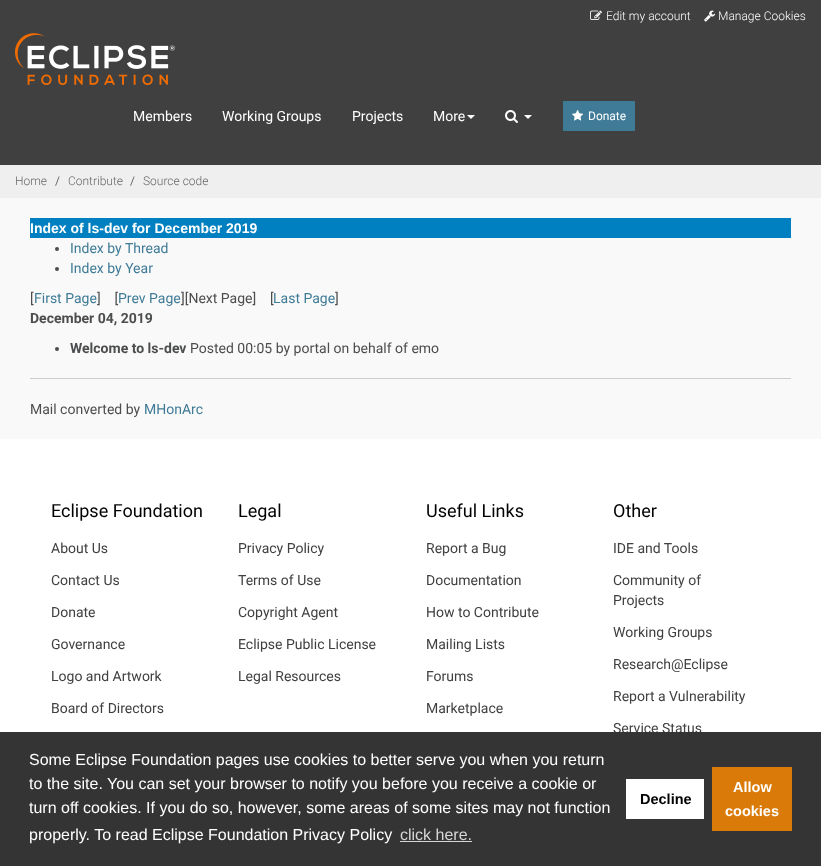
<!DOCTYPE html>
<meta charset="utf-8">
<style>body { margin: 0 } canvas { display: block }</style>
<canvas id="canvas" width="821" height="866"></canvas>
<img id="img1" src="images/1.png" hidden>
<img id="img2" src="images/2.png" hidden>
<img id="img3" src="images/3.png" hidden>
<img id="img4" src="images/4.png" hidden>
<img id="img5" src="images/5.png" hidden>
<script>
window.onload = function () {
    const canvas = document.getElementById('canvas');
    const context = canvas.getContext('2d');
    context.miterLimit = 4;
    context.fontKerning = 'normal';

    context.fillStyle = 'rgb(249, 249, 249)';
    context.fillRect(0, 0, 821, 866);
    context.fillStyle = 'rgb(64, 64, 64)';
    context.fillRect(0, 0, 821, 165);
    context.drawImage(document.getElementById('img1'), 590, 10, 12, 10);
    context.drawImage(document.getElementById('img2'), 704, 10, 12, 12);
    context.drawImage(document.getElementById('img3'), 15, 33, 160, 52);
    context.fillStyle = 'rgb(255, 255, 255)';
    context.beginPath();
    context.moveTo(467, 115);
    context.lineTo(475, 115);
    context.lineTo(471, 119);
    context.closePath();
    context.fill();
    context.drawImage(document.getElementById('img4'), 505, 110, 13, 13);
    context.beginPath();
    context.moveTo(524, 115);
    context.lineTo(532, 115);
    context.lineTo(528, 119);
    context.closePath();
    context.fill();
    context.fillStyle = 'rgb(63, 123, 150)';
    context.fillRect(563, 101, 72, 30);
    context.drawImage(document.getElementById('img5'), 572, 110, 12, 11);
    context.fillStyle = 'rgb(239, 239, 239)';
    context.fillRect(0, 165, 821, 33);
    context.fillStyle = 'rgb(0, 128, 192)';
    context.fillRect(30, 218, 761, 20);
    context.fillStyle = 'rgb(76, 77, 78)';
    context.beginPath();
    context.arc(57, 249, 2, 0, 2 * Math.PI);
    context.fill();
    context.beginPath();
    context.arc(57, 269, 2, 0, 2 * Math.PI);
    context.fill();
    context.beginPath();
    context.arc(57, 349, 2, 0, 2 * Math.PI);
    context.fill();
    context.fillStyle = 'rgb(204, 204, 204)';
    context.fillRect(30, 378, 761, 1);
    context.fillStyle = 'rgb(255, 255, 255)';
    context.fillRect(0, 439, 821, 293);
    context.font = '300 12px Roboto';
    context.fillText('Edit my account', 606, 20);
    context.fillText('Manage Cookies', 718, 20);
    context.font = '14px Roboto';
    context.fillText('Members', 133, 121);
    context.fillText('Working Groups', 222, 121);
    context.fillText('Projects', 352, 121);
    context.fillText('More', 433, 121);
    context.font = '12px Roboto';
    context.fillText('Donate', 588, 120);
    context.font = '300 12px Roboto';
    context.fillStyle = 'rgb(101, 102, 104)';
    context.fillText('Home', 15, 185);
    context.font = '12px Roboto';
    context.fillText('/', 55, 185);
    context.font = '300 12px Roboto';
    context.fillText('Contribute', 68, 185);
    context.font = '12px Roboto';
    context.fillText('/', 130, 185);
    context.font = '300 12px Roboto';
    context.fillText('Source code', 143, 185);
    context.font = 'bold 14px Liberation Sans';
    context.fillStyle = 'rgb(255, 255, 255)';
    context.fillText('Index of ls-dev for December 2019', 30, 233);
    context.font = '14px Roboto';
    context.fillStyle = 'rgb(63, 123, 150)';
    context.fillText('Index by Thread', 70, 253);
    context.fillText('Index by Year', 70, 273);
    context.fillStyle = 'rgb(76, 77, 78)';
    context.fillText('[', 30, 303);
    context.fillStyle = 'rgb(63, 123, 150)';
    context.fillText('First Page', 34, 303);
    context.fillStyle = 'rgb(76, 77, 78)';
    context.fillText(']    [', 97, 303);
    context.fillStyle = 'rgb(63, 123, 150)';
    context.fillText('Prev Page', 118, 303);
    context.fillStyle = 'rgb(76, 77, 78)';
    context.fillText('][Next Page]    [', 181, 303);
    context.fillStyle = 'rgb(63, 123, 150)';
    context.fillText('Last Page', 273, 303);
    context.fillStyle = 'rgb(76, 77, 78)';
    context.fillText(']', 335, 303);
    context.font = 'bold 14px Roboto';
    context.fillText('December 04, 2019', 30, 323);
    context.fillText('Welcome to ls-dev', 70, 353);
    context.font = '14px Roboto';
    context.fillText('Posted 00:05 by portal on behalf of emo', 190, 353);
    context.fillText('Mail converted by', 30, 414);
    context.fillStyle = 'rgb(63, 123, 150)';
    context.fillText('MHonArc', 144, 414);
    context.font = '18px Roboto';
    context.fillStyle = 'rgb(0, 0, 0)';
    context.fillText('Eclipse Foundation', 51, 517);
    context.font = '14px Roboto';
    context.fillStyle = 'rgb(64, 64, 64)';
    context.fillText('About Us', 51, 553);
    context.fillText('Contact Us', 51, 585);
    context.fillText('Donate', 51, 617);
    context.fillText('Governance', 51, 649);
    context.fillText('Logo and Artwork', 51, 681);
    context.fillText('Board of Directors', 51, 713);
    context.font = '18px Roboto';
    context.fillStyle = 'rgb(0, 0, 0)';
    context.fillText('Legal', 238, 517);
    context.font = '14px Roboto';
    context.fillStyle = 'rgb(64, 64, 64)';
    context.fillText('Privacy Policy', 238, 553);
    context.fillText('Terms of Use', 238, 585);
    context.fillText('Copyright Agent', 238, 617);
    context.fillText('Eclipse Public License', 238, 649);
    context.fillText('Legal Resources', 238, 681);
    context.font = '18px Roboto';
    context.fillStyle = 'rgb(0, 0, 0)';
    context.fillText('Useful Links', 426, 517);
    context.font = '14px Roboto';
    context.fillStyle = 'rgb(64, 64, 64)';
    context.fillText('Report a Bug', 426, 553);
    context.fillText('Documentation', 426, 585);
    context.fillText('How to Contribute', 426, 617);
    context.fillText('Mailing Lists', 426, 649);
    context.fillText('Forums', 426, 681);
    context.fillText('Marketplace', 426, 713);
    context.font = '18px Roboto';
    context.fillStyle = 'rgb(0, 0, 0)';
    context.fillText('Other', 613, 517);
    context.font = '14px Roboto';
    context.fillStyle = 'rgb(64, 64, 64)';
    context.fillText('IDE and Tools', 613, 553);
    context.fillText('Community of', 613, 585);
    context.fillText('Projects', 613, 605);
    context.fillText('Working Groups', 613, 637);
    context.fillText('Research@Eclipse', 613, 669);
    context.fillText('Report a Vulnerability', 613, 701);
    context.fillText('Service Status', 613, 733);
    context.fillStyle = 'rgb(53, 52, 52)';
    context.fillRect(0, 732, 821, 134);
    context.font = '16px Liberation Sans';
    context.fillStyle = 'rgb(255, 255, 255)';
    context.fillText('Some Eclipse Foundation pages use cookies to better serve you when you return', 29, 765);
    context.fillText('to the site. You can set your browser to notify you before you receive a cookie or', 29, 789);
    context.fillText('turn off cookies. If you do so, however, some areas of some sites may not function', 29, 813);
    context.fillText('properly. To read Eclipse Foundation Privacy Policy', 29, 840);
    context.fillStyle = 'rgb(215, 214, 214)';
    context.fillText('click here.', 400, 840);
    context.fillRect(400, 841, 72, 1);
    context.fillStyle = 'rgb(255, 255, 255)';
    context.fillRect(626, 779, 78, 40);
    context.font = 'bold 14.5px Liberation Sans';
    context.fillStyle = 'rgb(0, 0, 0)';
    context.fillText('Decline', 640, 804);
    context.fillStyle = 'rgb(218, 122, 8)';
    context.fillRect(712, 767, 80, 64);
    context.fillStyle = 'rgb(255, 255, 255)';
    context.fillText('Allow', 733, 792);
    context.fillText('cookies', 725, 816);
};
</script>
